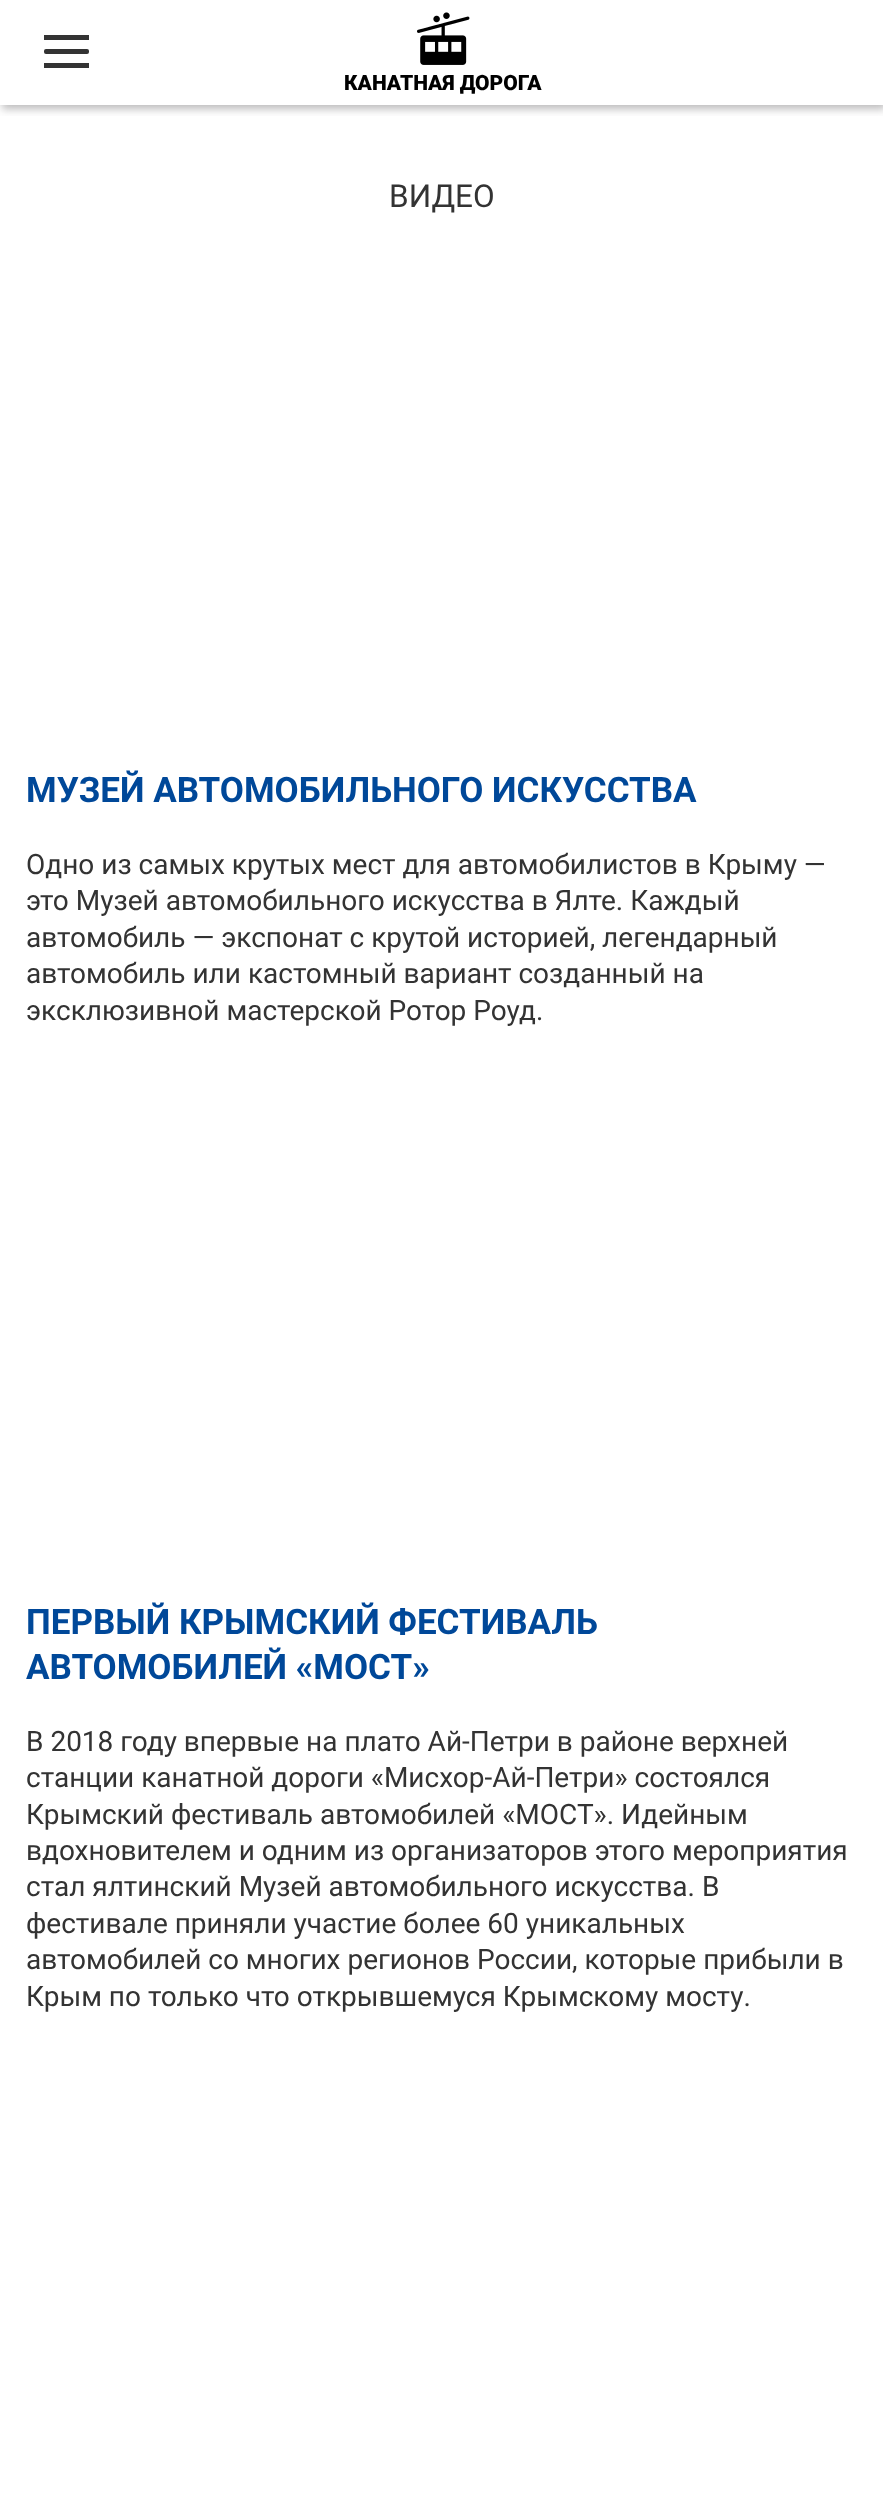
<!DOCTYPE html>
<meta charset="utf-8">
<style>body { margin: 0 } canvas { display: block }</style>
<canvas id="canvas" width="883" height="2509"></canvas>
<img id="img1" src="images/1.png" hidden>
<script>
window.onload = function () {
    const canvas = document.getElementById('canvas');
    const context = canvas.getContext('2d');
    context.miterLimit = 4;
    context.fontKerning = 'normal';

    context.fillStyle = 'rgb(255, 255, 255)';
    context.fillRect(0, 0, 883, 2509);
    context.save();
    context.beginPath();
    context.rect(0, 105, 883, 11);
    context.clip();
    context.fillStyle = 'rgba(31, 28, 29, 0.3)';
    context.filter = 'blur(4.5px)';
    context.beginPath();
    context.rect(2, 4, 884, 105);
    context.fill();
    context.filter = 'none';
    context.restore();
    context.fillStyle = 'rgb(51, 51, 51)';
    context.fillRect(44, 35, 45, 5);
    context.fillRect(44, 63, 45, 5);
    context.beginPath();
    context.roundRect(44, 49, 45, 5, 2);
    context.fill();
    context.drawImage(document.getElementById('img1'), 417, 12, 53, 53);
    context.font = '900 21px Roboto';
    context.fillStyle = 'rgb(0, 0, 0)';
    context.fillText('КАНАТНАЯ ДОРОГА', 344, 90);
    context.font = '31.5px Roboto';
    context.fillStyle = 'rgb(51, 51, 51)';
    context.fillText('ВИДЕО', 389, 207);
    context.font = 'bold 35px Roboto';
    context.fillStyle = 'rgb(0, 72, 153)';
    context.fillText('МУЗЕЙ АВТОМОБИЛЬНОГО ИСКУССТВА', 26, 802);
    context.font = '28px Roboto';
    context.fillStyle = 'rgb(51, 51, 51)';
    context.fillText('Одно из самых крутых мест для автомобилистов в Крыму —', 26, 874);
    context.fillText('это Музей автомобильного искусства в Ялте. Каждый', 26, 910);
    context.fillText('автомобиль — экспонат с крутой историей, легендарный', 26, 947);
    context.fillText('автомобиль или кастомный вариант созданный на', 26, 983);
    context.fillText('эксклюзивной мастерской Ротор Роуд.', 26, 1020);
    context.font = 'bold 35px Roboto';
    context.fillStyle = 'rgb(0, 72, 153)';
    context.fillText('ПЕРВЫЙ КРЫМСКИЙ ФЕСТИВАЛЬ', 26, 1634);
    context.fillText('АВТОМОБИЛЕЙ «МОСТ»', 26, 1679);
    context.font = '28px Roboto';
    context.fillStyle = 'rgb(51, 51, 51)';
    context.fillText('В 2018 году впервые на плато Ай-Петри в районе верхней', 26, 1751);
    context.fillText('станции канатной дороги «Мисхор-Ай-Петри» состоялся', 26, 1787);
    context.fillText('Крымский фестиваль автомобилей «МОСТ». Идейным', 26, 1824);
    context.fillText('вдохновителем и одним из организаторов этого мероприятия', 26, 1860);
    context.fillText('стал ялтинский Музей автомобильного искусства. В', 26, 1896);
    context.fillText('фестивале приняли участие более 60 уникальных', 26, 1933);
    context.fillText('автомобилей со многих регионов России, которые прибыли в', 26, 1969);
    context.fillText('Крым по только что открывшемуся Крымскому мосту.', 26, 2006);
};
</script>
